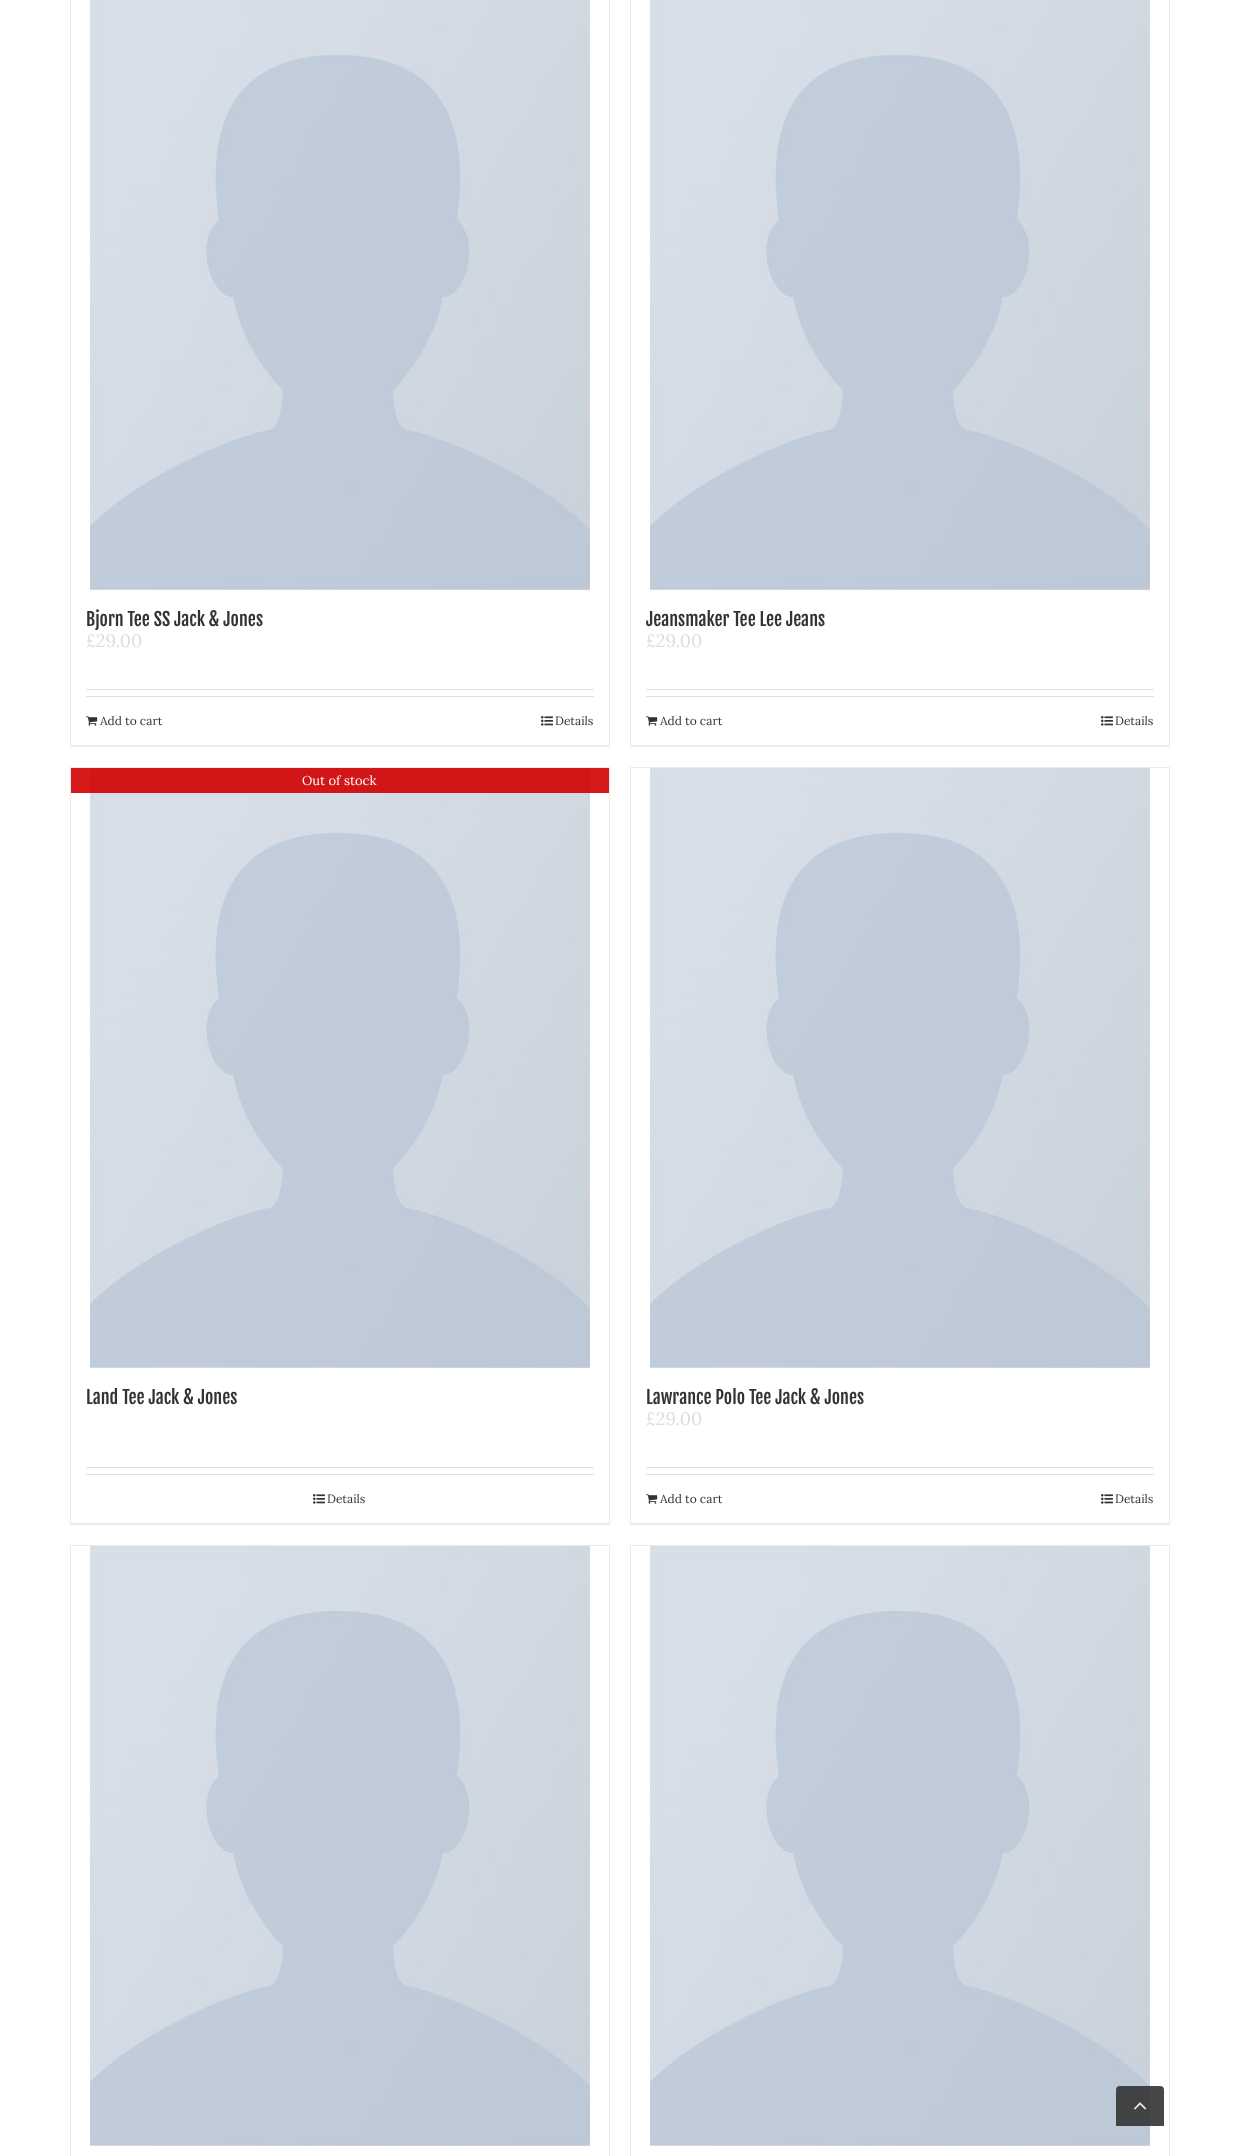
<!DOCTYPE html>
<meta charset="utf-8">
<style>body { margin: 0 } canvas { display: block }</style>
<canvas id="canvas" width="1239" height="2156"></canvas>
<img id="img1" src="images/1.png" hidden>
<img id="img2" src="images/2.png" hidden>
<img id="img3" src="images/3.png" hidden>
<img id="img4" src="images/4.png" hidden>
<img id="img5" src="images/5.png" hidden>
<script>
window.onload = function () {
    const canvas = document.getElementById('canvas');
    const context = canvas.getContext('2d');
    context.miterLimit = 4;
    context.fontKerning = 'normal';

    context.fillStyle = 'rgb(255, 255, 255)';
    context.fillRect(0, 0, 1239, 2156);
    context.fillStyle = 'rgb(235, 234, 234)';
    context.fillRect(609, 0, 1, 747);
    context.fillRect(70, 745, 540, 2);
    context.fillRect(70, 0, 1, 747);
    context.drawImage(document.getElementById('img1'), 90, 0, 500, 590);
    context.fillStyle = 'rgb(224, 222, 222)';
    context.fillRect(86, 689, 508, 1);
    context.fillRect(86, 696, 508, 1);
    context.drawImage(document.getElementById('img2'), 86, 716, 12, 10);
    context.drawImage(document.getElementById('img3'), 541, 716, 12, 10);
    context.fillStyle = 'rgb(235, 234, 234)';
    context.fillRect(1169, 0, 1, 747);
    context.fillRect(630, 745, 540, 2);
    context.fillRect(630, 0, 1, 747);
    context.drawImage(document.getElementById('img1'), 650, 0, 500, 590);
    context.fillStyle = 'rgb(224, 222, 222)';
    context.fillRect(646, 689, 508, 1);
    context.fillRect(646, 696, 508, 1);
    context.drawImage(document.getElementById('img2'), 646, 716, 12, 10);
    context.drawImage(document.getElementById('img3'), 1101, 716, 12, 10);
    context.fillStyle = 'rgb(235, 234, 234)';
    context.fillRect(70, 767, 540, 1);
    context.fillRect(609, 767, 1, 758);
    context.fillRect(70, 1523, 540, 2);
    context.fillRect(70, 767, 1, 758);
    context.drawImage(document.getElementById('img4'), 90, 768, 500, 600);
    context.fillStyle = 'rgba(210, 0, 0, 0.9)';
    context.fillRect(71, 768, 538, 25);
    context.fillStyle = 'rgb(224, 222, 222)';
    context.fillRect(86, 1467, 508, 1);
    context.fillRect(86, 1474, 508, 1);
    context.drawImage(document.getElementById('img3'), 313, 1494, 12, 10);
    context.fillStyle = 'rgb(235, 234, 234)';
    context.fillRect(630, 767, 540, 1);
    context.fillRect(1169, 767, 1, 758);
    context.fillRect(630, 1523, 540, 2);
    context.fillRect(630, 767, 1, 758);
    context.drawImage(document.getElementById('img4'), 650, 768, 500, 600);
    context.fillStyle = 'rgb(224, 222, 222)';
    context.fillRect(646, 1467, 508, 1);
    context.fillRect(646, 1474, 508, 1);
    context.drawImage(document.getElementById('img2'), 646, 1494, 12, 10);
    context.drawImage(document.getElementById('img3'), 1101, 1494, 12, 10);
    context.fillStyle = 'rgb(235, 234, 234)';
    context.fillRect(70, 1545, 540, 1);
    context.fillRect(609, 1545, 1, 611);
    context.fillRect(70, 1545, 1, 611);
    context.drawImage(document.getElementById('img4'), 90, 1546, 500, 600);
    context.fillRect(630, 1545, 540, 1);
    context.fillRect(1169, 1545, 1, 611);
    context.fillRect(630, 1545, 1, 611);
    context.drawImage(document.getElementById('img4'), 650, 1546, 500, 600);
    context.fillStyle = 'rgba(51, 51, 51, 0.9)';
    context.beginPath();
    context.roundRect(1116, 2086, 48, 40, [4, 4, 0, 0]);
    context.fill();
    context.drawImage(document.getElementById('img5'), 1134, 2102, 13, 8);
    context.font = '18px Fjalla One';
    context.fillStyle = 'rgb(51, 51, 51)';
    context.fillText('Bjorn Tee SS Jack & Jones', 86, 626);
    context.font = '18px Lora';
    context.fillStyle = 'rgb(221, 221, 221)';
    context.fillText('£29.00', 86, 647);
    context.font = '12px Lora';
    context.fillStyle = 'rgb(51, 51, 51)';
    context.fillText('Add to cart', 100, 725);
    context.fillText('Details', 555, 725);
    context.font = '18px Fjalla One';
    context.fillText('Jeansmaker Tee Lee Jeans', 646, 626);
    context.font = '18px Lora';
    context.fillStyle = 'rgb(221, 221, 221)';
    context.fillText('£29.00', 646, 647);
    context.font = '12px Lora';
    context.fillStyle = 'rgb(51, 51, 51)';
    context.fillText('Add to cart', 660, 725);
    context.fillText('Details', 1115, 725);
    context.font = '13px Lora';
    context.fillStyle = 'rgb(255, 255, 255)';
    context.fillText('Out of stock', 302, 785);
    context.font = '18px Fjalla One';
    context.fillStyle = 'rgb(51, 51, 51)';
    context.fillText('Land Tee Jack & Jones', 86, 1404);
    context.font = '12px Lora';
    context.fillText('Details', 327, 1503);
    context.font = '18px Fjalla One';
    context.fillText('Lawrance Polo Tee Jack & Jones', 646, 1404);
    context.font = '18px Lora';
    context.fillStyle = 'rgb(221, 221, 221)';
    context.fillText('£29.00', 646, 1425);
    context.font = '12px Lora';
    context.fillStyle = 'rgb(51, 51, 51)';
    context.fillText('Add to cart', 660, 1503);
    context.fillText('Details', 1115, 1503);
};
</script>
